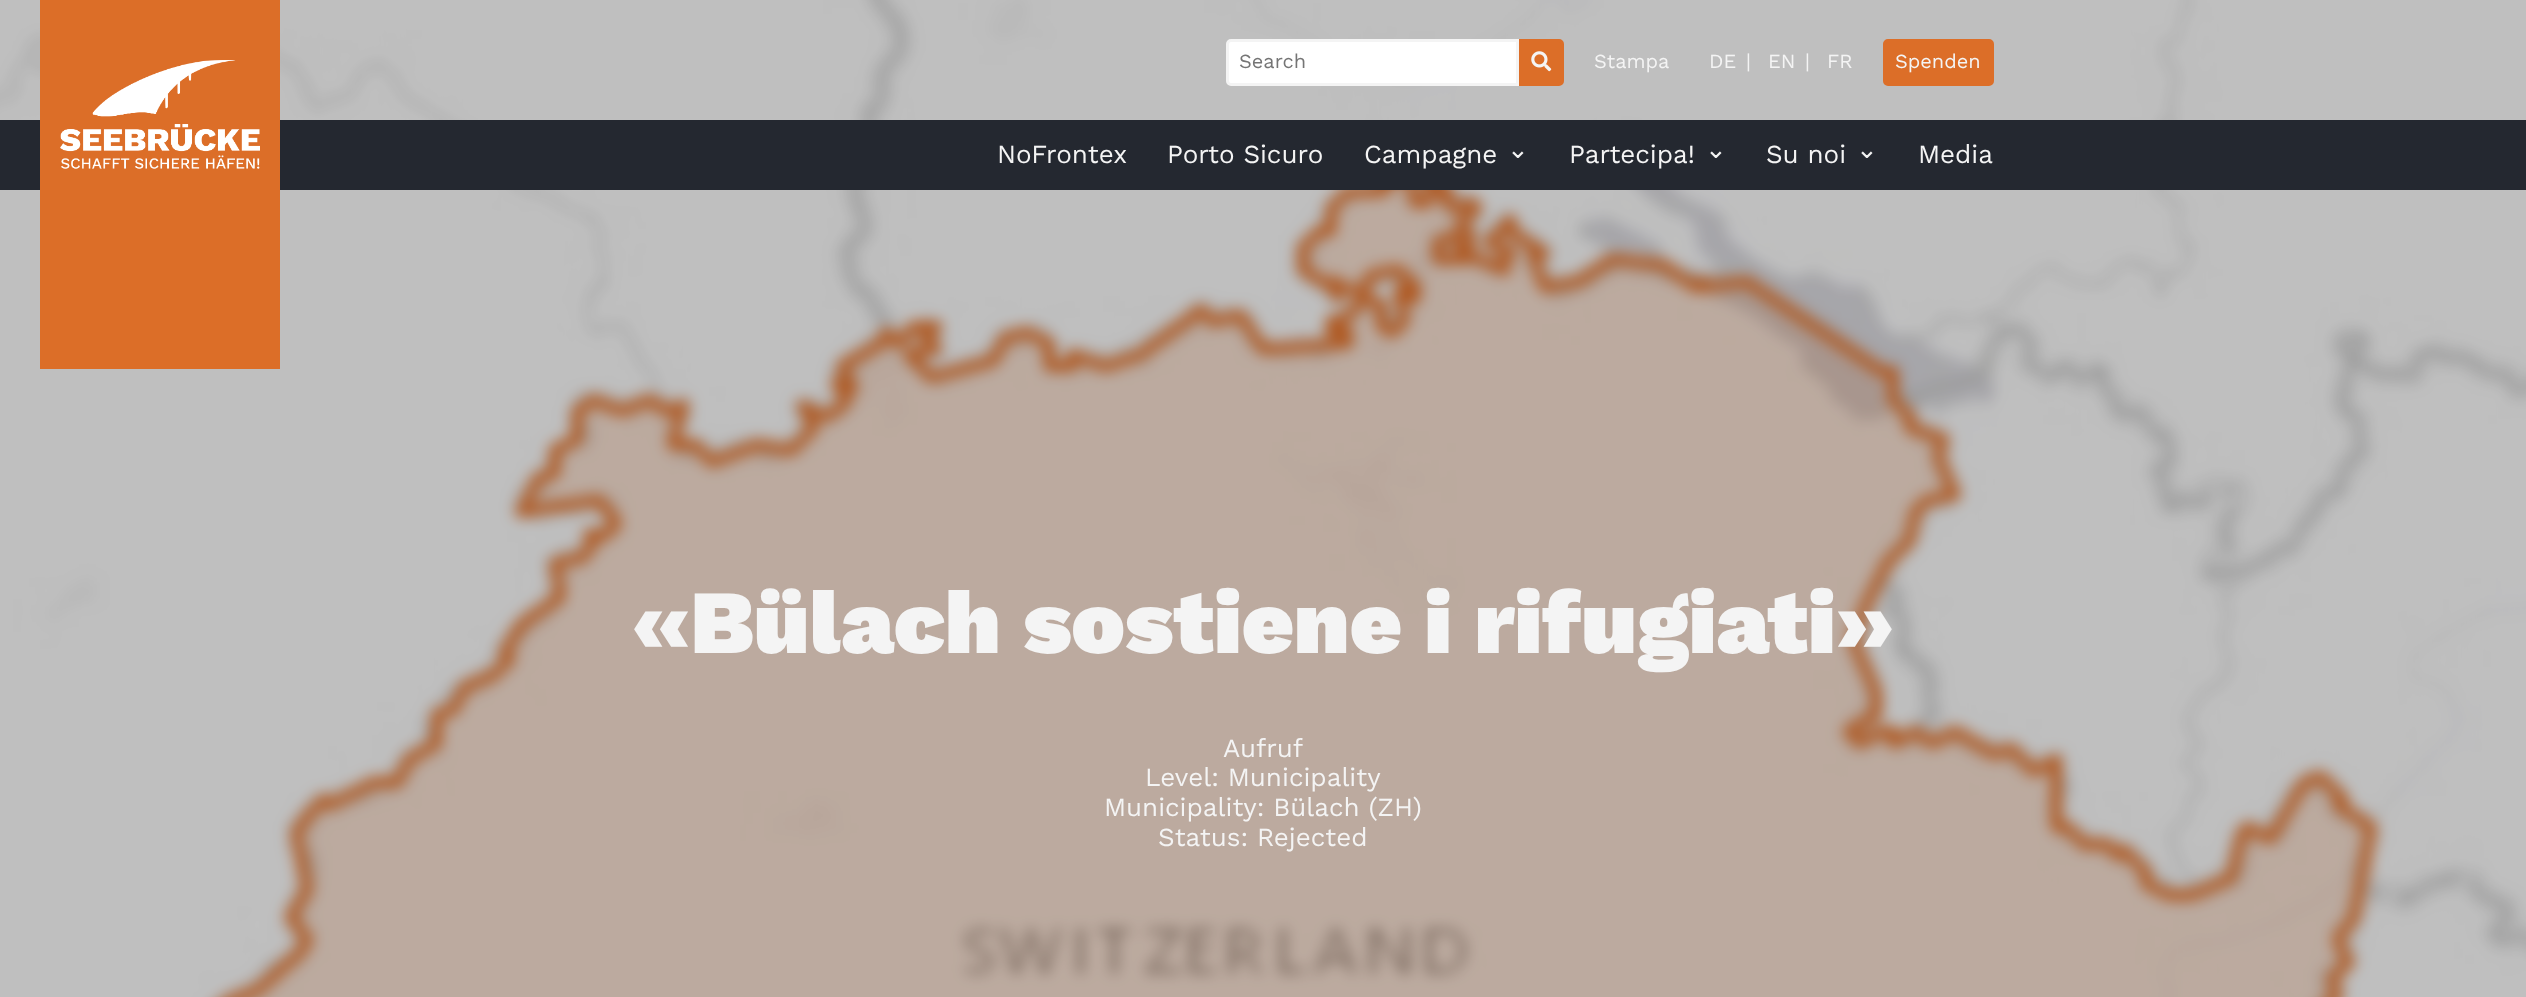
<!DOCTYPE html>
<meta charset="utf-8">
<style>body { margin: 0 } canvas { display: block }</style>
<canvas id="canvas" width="2526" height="997"></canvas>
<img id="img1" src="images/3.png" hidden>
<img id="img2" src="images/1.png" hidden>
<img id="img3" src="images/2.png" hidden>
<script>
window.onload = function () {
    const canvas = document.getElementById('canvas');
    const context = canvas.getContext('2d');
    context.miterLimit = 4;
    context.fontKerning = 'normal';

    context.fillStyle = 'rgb(255, 255, 255)';
    context.fillRect(0, 0, 2526, 997);
    context.drawImage(document.getElementById('img1'), 0, 0, 2526, 997);
    context.fillStyle = 'rgb(36, 40, 48)';
    context.fillRect(0, 120, 2526, 70);
    context.fillStyle = 'rgb(220, 110, 40)';
    context.fillRect(40, 0, 240, 369);
    context.drawImage(document.getElementById('img2'), 60, 60, 200, 109);
    context.fillStyle = 'rgb(255, 255, 255)';
    context.beginPath();
    context.roundRect(1227.5, 40.5, 290, 44, [3.5, 0, 0, 3.5]);
    context.fill();
    context.strokeStyle = 'rgb(244, 244, 244)';
    context.lineWidth = 3;
    context.stroke();
    context.fillStyle = 'rgb(220, 110, 40)';
    context.beginPath();
    context.roundRect(1520.5, 40.5, 42, 44, [0, 3.5, 3.5, 0]);
    context.fill();
    context.strokeStyle = 'rgb(220, 110, 40)';
    context.stroke();
    context.drawImage(document.getElementById('img3'), 1531, 51, 21, 21);
    context.beginPath();
    context.roundRect(1884.5, 40.5, 108, 44, 3.5);
    context.fill();
    context.stroke();
    context.font = '20px Work Sans';
    context.fillStyle = 'rgb(117, 117, 117)';
    context.fillText('Search', 1239, 68);
    context.fillStyle = 'rgb(244, 244, 244)';
    context.fillText('Stampa', 1594, 68);
    context.fillText('DE', 1709, 68);
    context.fillText('|', 1746, 68);
    context.fillText('EN', 1768, 68);
    context.fillText('|', 1805, 68);
    context.fillText('FR', 1827, 68);
    context.fillText('Spenden', 1895, 68);
    context.font = '26px Work Sans';
    context.fillText('NoFrontex', 997, 163);
    context.fillText('Porto Sicuro', 1167, 163);
    context.fillText('Campagne', 1364, 163);
    context.font = '26px DejaVu Sans';
    context.fillText('⌄', 1507, 158);
    context.font = '26px Work Sans';
    context.fillText('Partecipa!', 1569, 163);
    context.font = '26px DejaVu Sans';
    context.fillText('⌄', 1705, 158);
    context.font = '26px Work Sans';
    context.fillText('Su noi', 1766, 163);
    context.font = '26px DejaVu Sans';
    context.fillText('⌄', 1856, 158);
    context.font = '26px Work Sans';
    context.fillText('Media', 1918, 163);
    context.font = '900 90px Work Sans';
    context.fillText('«Bülach sostiene i rifugiati»', 632, 653);
    context.font = '26px Work Sans';
    context.fillText('Aufruf', 1223, 757);
    context.fillText('Level: Municipality', 1145, 786);
    context.fillText('Municipality: Bülach (ZH)', 1104, 816);
    context.fillText('Status: Rejected', 1158, 846);
};
</script>
